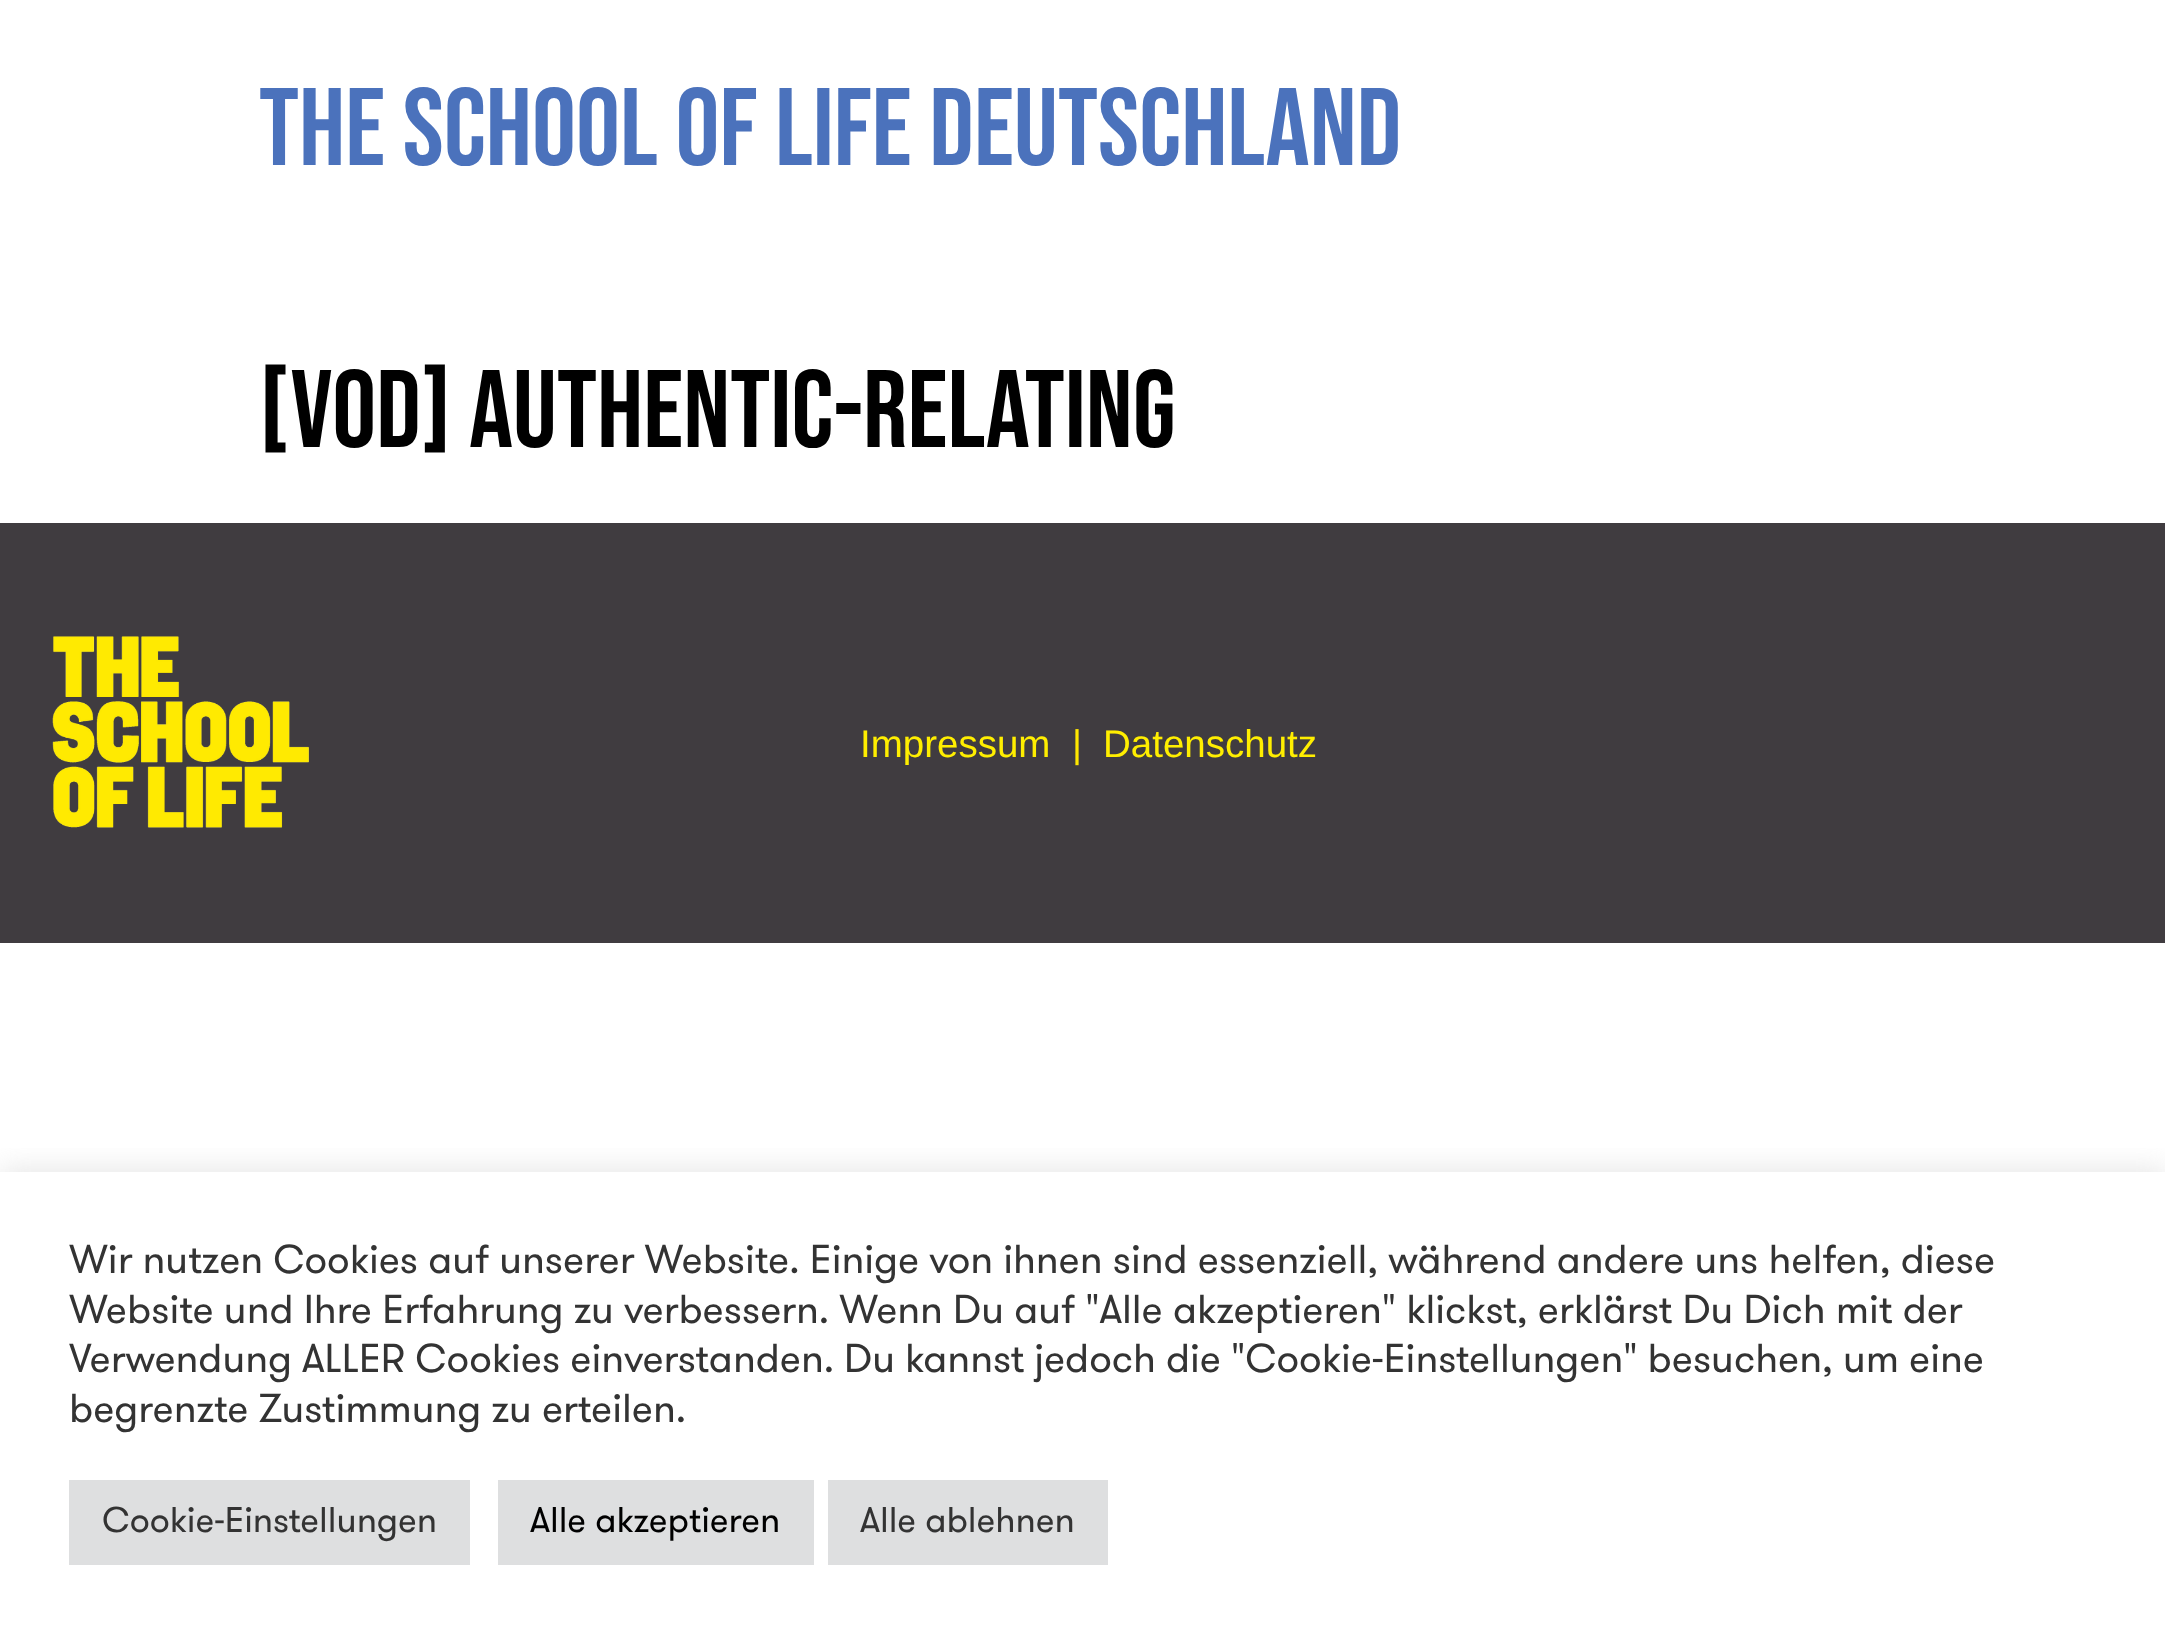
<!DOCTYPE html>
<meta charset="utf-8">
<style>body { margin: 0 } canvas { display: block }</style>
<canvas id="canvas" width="2165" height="1645"></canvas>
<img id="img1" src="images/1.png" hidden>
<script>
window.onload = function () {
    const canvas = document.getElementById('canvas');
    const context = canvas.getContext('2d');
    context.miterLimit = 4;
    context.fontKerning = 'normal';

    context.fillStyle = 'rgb(255, 255, 255)';
    context.fillRect(0, 0, 2165, 1645);
    context.fillStyle = 'rgb(64, 60, 64)';
    context.fillRect(0, 523, 2165, 420);
    context.drawImage(document.getElementById('img1'), 52, 636, 257, 192);
    context.save();
    context.beginPath();
    context.rect(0, 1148, 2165, 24);
    context.clip();
    context.fillStyle = 'rgba(172, 171, 171, 0.3)';
    context.filter = 'blur(14px)';
    context.beginPath();
    context.rect(0, 1169, 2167, 476);
    context.fill();
    context.filter = 'none';
    context.restore();
    context.fillStyle = 'rgb(222, 223, 224)';
    context.fillRect(69, 1480, 401, 85);
    context.fillRect(498, 1480, 316, 85);
    context.fillRect(828, 1480, 280, 85);
    context.font = '110px Bebas Neue';
    context.fillStyle = 'rgb(75, 114, 188)';
    context.fillText('The School of Life Deutschland', 259, 165);
    context.fillStyle = 'rgb(0, 0, 0)';
    context.fillText('[vod] authentic-relating', 259, 447);
    context.font = '38.5px Liberation Sans';
    context.fillStyle = 'rgb(255, 238, 0)';
    context.fillText('Impressum', 860, 757);
    context.fillStyle = 'rgb(255, 231, 0)';
    context.fillText('|', 1072, 757);
    context.fillStyle = 'rgb(255, 238, 0)';
    context.fillText('Datenschutz', 1103, 757);
    context.font = '40.35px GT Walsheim';
    context.fillStyle = 'rgb(51, 51, 51)';
    context.fillText('Wir nutzen Cookies auf unserer Website. Einige von ihnen sind essenziell, während andere uns helfen, diese', 69, 1273);
    context.fillText('Website und Ihre Erfahrung zu verbessern. Wenn Du auf "Alle akzeptieren" klickst, erklärst Du Dich mit der', 69, 1323);
    context.wordSpacing = '-0.1px';
    context.fillText('Verwendung ALLER Cookies einverstanden. Du kannst jedoch die "Cookie-Einstellungen" besuchen, um eine', 69, 1372);
    context.wordSpacing = '0px';
    context.fillText('begrenzte Zustimmung zu erteilen.', 69, 1422);
    context.font = '35.75px GT Walsheim';
    context.fillText('Cookie-Einstellungen', 102, 1532);
    context.fillStyle = 'rgb(0, 0, 0)';
    context.fillText('Alle akzeptieren', 530, 1532);
    context.fillStyle = 'rgb(51, 51, 51)';
    context.fillText('Alle ablehnen', 860, 1532);
};
</script>
